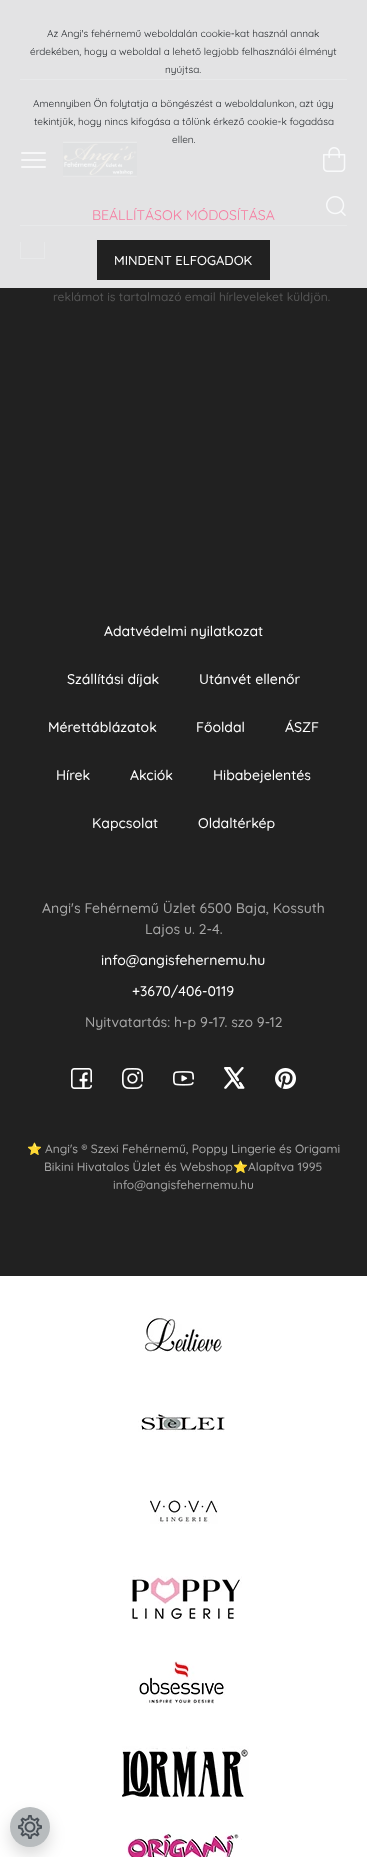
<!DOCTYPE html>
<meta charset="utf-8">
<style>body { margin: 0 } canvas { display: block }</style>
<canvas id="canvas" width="367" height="1857"></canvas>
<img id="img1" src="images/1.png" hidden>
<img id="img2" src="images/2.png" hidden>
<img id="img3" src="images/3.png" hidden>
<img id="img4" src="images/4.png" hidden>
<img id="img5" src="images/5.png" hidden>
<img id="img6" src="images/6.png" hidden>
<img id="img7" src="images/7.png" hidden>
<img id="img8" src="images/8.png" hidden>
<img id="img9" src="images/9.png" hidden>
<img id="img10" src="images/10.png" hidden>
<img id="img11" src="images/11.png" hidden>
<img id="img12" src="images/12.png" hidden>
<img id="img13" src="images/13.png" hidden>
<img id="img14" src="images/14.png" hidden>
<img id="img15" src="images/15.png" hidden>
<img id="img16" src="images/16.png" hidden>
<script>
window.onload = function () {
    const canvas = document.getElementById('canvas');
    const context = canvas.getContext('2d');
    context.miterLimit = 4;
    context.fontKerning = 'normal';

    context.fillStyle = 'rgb(255, 255, 255)';
    context.fillRect(0, 0, 367, 1857);
    context.fillStyle = 'rgb(227, 227, 228)';
    context.fillRect(0, 0, 367, 288);
    context.fillStyle = 'rgb(33, 33, 33)';
    context.fillRect(97, 240, 173, 40);
    context.strokeStyle = 'rgb(232, 233, 234)';
    context.strokeRect(20.5, 234.5, 24, 24);
    context.fillStyle = 'rgb(227, 227, 228)';
    context.fillRect(20, 234, 25, 8);
    context.fillStyle = 'rgb(247, 247, 248)';
    context.beginPath();
    context.roundRect(21, 152, 25, 2, 1);
    context.fill();
    context.beginPath();
    context.roundRect(21, 159, 25, 2, 1);
    context.fill();
    context.beginPath();
    context.roundRect(21, 166, 25, 2, 1);
    context.fill();
    context.drawImage(document.getElementById('img1'), 63, 141, 74, 36);
    context.drawImage(document.getElementById('img2'), 323, 147, 23, 25);
    context.drawImage(document.getElementById('img3'), 326, 196, 20, 20);
    context.fillStyle = 'rgb(232, 233, 234)';
    context.fillRect(20, 225, 327, 1);
    context.fillStyle = 'rgb(33, 33, 33)';
    context.fillRect(0, 288, 367, 988);
    context.fillStyle = 'rgb(232, 233, 234)';
    context.fillRect(20, 79, 327, 1);
    context.drawImage(document.getElementById('img4'), 71, 1068, 21, 21);
    context.drawImage(document.getElementById('img5'), 122, 1068, 21, 21);
    context.drawImage(document.getElementById('img6'), 173, 1071, 21, 15);
    context.drawImage(document.getElementById('img7'), 224, 1067, 21, 22);
    context.drawImage(document.getElementById('img8'), 275, 1068, 21, 21);
    context.drawImage(document.getElementById('img9'), 142, 1316, 80, 36);
    context.drawImage(document.getElementById('img10'), 138, 1413, 87, 19);
    context.drawImage(document.getElementById('img11'), 150, 1500, 68, 24);
    context.drawImage(document.getElementById('img12'), 131, 1576, 111, 44);
    context.drawImage(document.getElementById('img13'), 139, 1661, 87, 43);
    context.drawImage(document.getElementById('img14'), 122, 1746, 127, 54);
    context.drawImage(document.getElementById('img15'), 126, 1832, 116, 25);
    context.fillStyle = 'rgba(0, 0, 0, 0.15)';
    context.filter = 'blur(8px)';
    context.beginPath();
    context.roundRect(10, 1815, 40, 40, 20);
    context.fill();
    context.filter = 'none';
    context.fillStyle = 'rgb(184, 188, 190)';
    context.beginPath();
    context.arc(30, 1827, 20, 0, 2 * Math.PI);
    context.fill();
    context.drawImage(document.getElementById('img16'), 18, 1815, 24, 24);
    context.font = '10px Quicksand';
    context.fillStyle = 'rgb(33, 37, 41)';
    context.fillText('Az Angi\'s fehérnemű weboldalán cookie-kat használ annak', 47, 37);
    context.fillText('érdekében, hogy a weboldal a lehető legjobb felhasználói élményt', 30, 55);
    context.fillText('nyújtsa.', 165, 73);
    context.fillText('Amennyiben Ön folytatja a böngészést a weboldalunkon, azt úgy', 33, 107);
    context.fillText('tekintjük, hogy nincs kifogása a tőlünk érkező cookie-k fogadása', 34, 125);
    context.fillText('ellen.', 172, 143);
    context.font = '14px Quicksand';
    context.fillStyle = 'rgb(246, 125, 161)';
    context.fillText('BEÁLLÍTÁSOK MÓDOSÍTÁSA', 92, 220);
    context.font = '500 13px Quicksand';
    context.fillStyle = 'rgb(255, 255, 255)';
    context.fillText('MINDENT ELFOGADOK', 114, 265);
    context.font = '500 12px Quicksand';
    context.fillStyle = 'rgb(86, 86, 86)';
    context.fillText('reklámot is tartalmazó email hírleveleket küldjön.', 53, 301);
    context.font = '500 14px Quicksand';
    context.fillStyle = 'rgb(255, 255, 255)';
    context.fillText('Adatvédelmi nyilatkozat', 104, 636);
    context.fillText('Szállítási díjak', 67, 684);
    context.fillText('Utánvét ellenőr', 199, 684);
    context.fillText('Mérettáblázatok', 48, 732);
    context.fillText('Főoldal', 196, 732);
    context.fillText('ÁSZF', 285, 732);
    context.fillText('Hírek', 56, 780);
    context.fillText('Akciók', 130, 780);
    context.fillText('Hibabejelentés', 213, 780);
    context.fillText('Kapcsolat', 92, 828);
    context.fillText('Oldaltérkép', 198, 828);
    context.fillStyle = 'rgb(166, 166, 166)';
    context.fillText('Angi\'s Fehérnemű Üzlet 6500 Baja, Kossuth', 42, 913);
    context.fillText('Lajos u. 2-4.', 145, 934);
    context.fillStyle = 'rgb(255, 255, 255)';
    context.fillText('info@angisfehernemu.hu', 101, 965);
    context.fillText('+3670/406-0119', 132, 996);
    context.fillStyle = 'rgb(166, 166, 166)';
    context.fillText('Nyitvatartás: h-p 9-17. szo 9-12', 85, 1027);
    context.font = '12px Noto Color Emoji';
    context.fillText('⭐️', 27, 1153);
    context.font = '500 12px Quicksand';
    context.fillText('Angi\'s ® Szexi Fehérnemű, Poppy Lingerie és Origami', 45, 1153);
    context.fillText('Bikini Hivatalos Üzlet és Webshop', 44, 1171);
    context.font = '12px Noto Color Emoji';
    context.fillText('⭐️', 233, 1171);
    context.font = '500 12px Quicksand';
    context.fillText('Alapítva 1995', 248, 1171);
    context.fillText('info@angisfehernemu.hu', 113, 1189);
};
</script>
